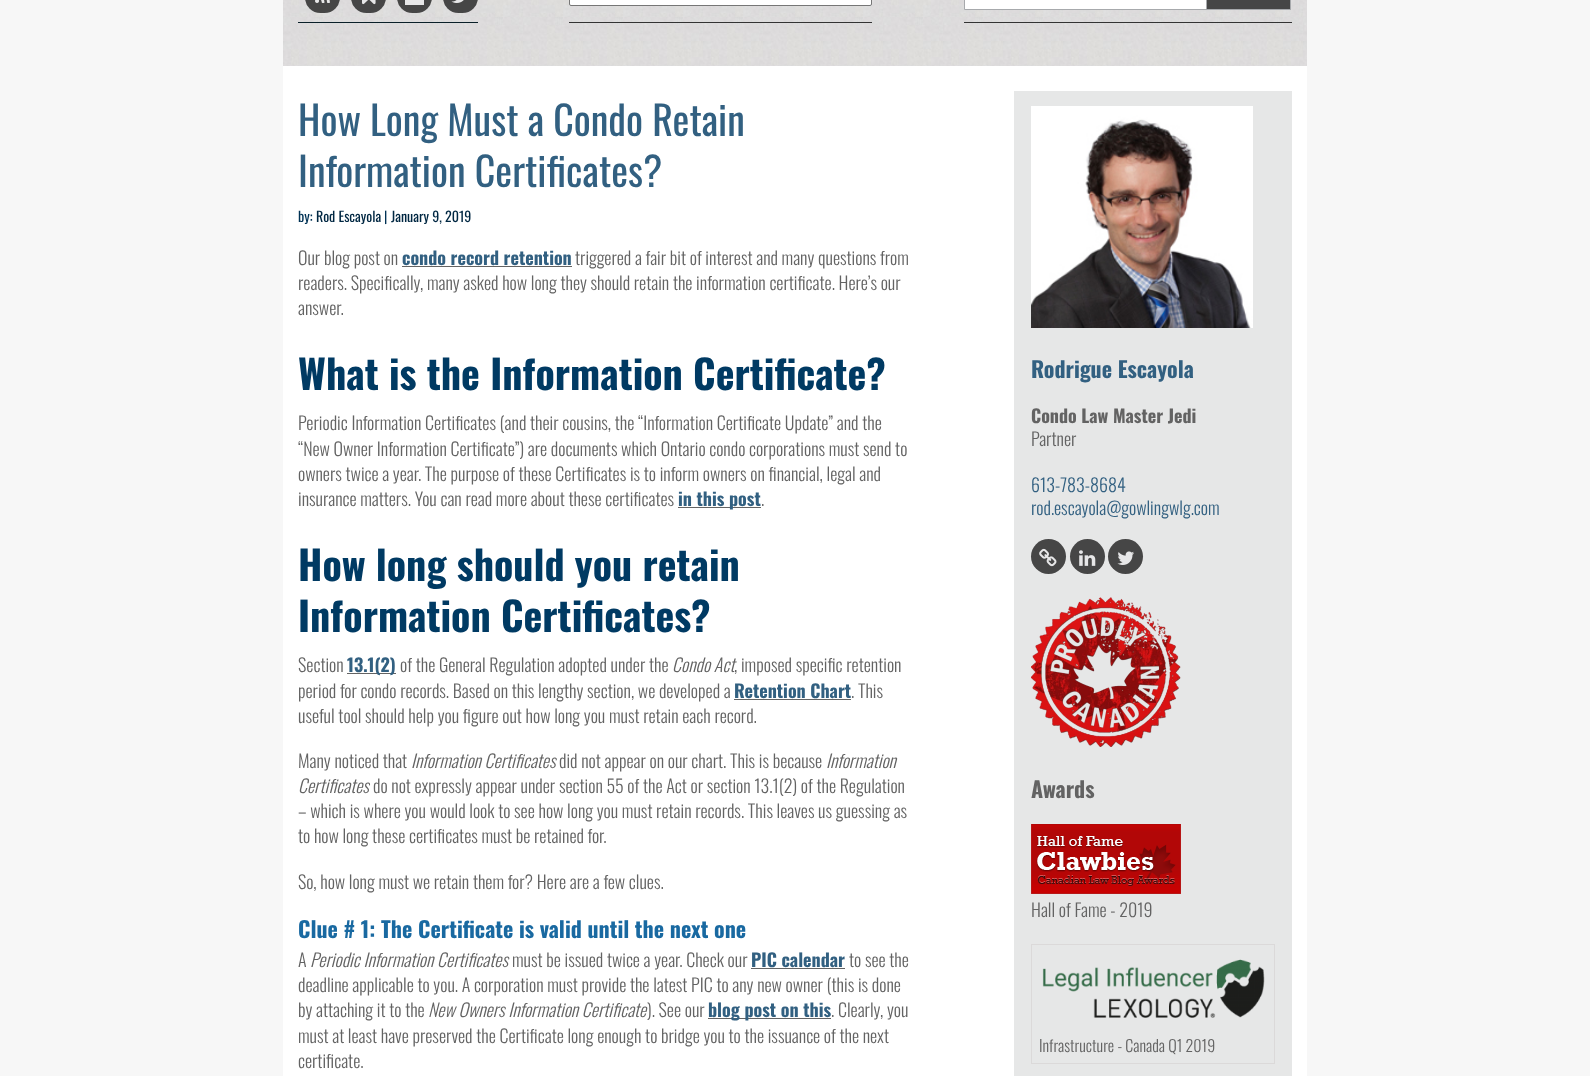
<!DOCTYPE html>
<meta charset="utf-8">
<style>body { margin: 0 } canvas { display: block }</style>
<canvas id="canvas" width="1590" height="1076"></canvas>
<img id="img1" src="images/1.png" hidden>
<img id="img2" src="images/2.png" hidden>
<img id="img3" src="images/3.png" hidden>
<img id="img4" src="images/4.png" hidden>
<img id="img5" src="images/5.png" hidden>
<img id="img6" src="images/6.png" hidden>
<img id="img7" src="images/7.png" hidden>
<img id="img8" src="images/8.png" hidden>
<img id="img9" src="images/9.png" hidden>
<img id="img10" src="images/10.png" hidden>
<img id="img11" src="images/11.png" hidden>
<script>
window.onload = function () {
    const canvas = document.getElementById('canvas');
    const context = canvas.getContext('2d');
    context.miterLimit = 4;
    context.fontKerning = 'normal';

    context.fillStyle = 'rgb(247, 247, 247)';
    context.fillRect(0, 0, 1590, 1076);
    context.drawImage(document.getElementById('img1'), 283, 0, 1024, 66);
    context.fillStyle = 'rgb(10, 32, 41)';
    context.fillRect(298, 22, 180, 1);
    context.fillStyle = 'rgb(70, 70, 70)';
    context.beginPath();
    context.roundRect(305, -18, 35, 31, 17.5);
    context.fill();
    context.drawImage(document.getElementById('img2'), 315, 0, 15, 3);
    context.beginPath();
    context.roundRect(351, -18, 35, 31, 17.5);
    context.fill();
    context.drawImage(document.getElementById('img3'), 362, 0, 14, 5);
    context.beginPath();
    context.roundRect(397, -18, 35, 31, 17.5);
    context.fill();
    context.fillStyle = 'rgb(231, 231, 232)';
    context.fillRect(405, 0, 19, 5);
    context.fillStyle = 'rgb(70, 70, 70)';
    context.beginPath();
    context.roundRect(443, -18, 35, 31, 17.5);
    context.fill();
    context.drawImage(document.getElementById('img4'), 451, 0, 13, 3);
    context.fillStyle = 'rgb(51, 51, 51)';
    context.fillRect(569, 22, 303, 1);
    context.fillStyle = 'rgb(255, 255, 255)';
    context.beginPath();
    context.roundRect(569.5, -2.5, 302, 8, 1.5);
    context.fill();
    context.strokeStyle = 'rgb(118, 118, 118)';
    context.stroke();
    context.fillStyle = 'rgb(51, 51, 51)';
    context.fillRect(964, 22, 328, 1);
    context.fillStyle = 'rgb(255, 255, 255)';
    context.beginPath();
    context.rect(964.5, -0.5, 242, 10);
    context.fill();
    context.strokeStyle = 'rgb(167, 169, 172)';
    context.stroke();
    context.fillStyle = 'rgb(70, 70, 70)';
    context.beginPath();
    context.rect(1206.5, -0.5, 84, 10);
    context.fill();
    context.stroke();
    context.fillStyle = 'rgb(255, 255, 255)';
    context.fillRect(283, 66, 1024, 1010);
    context.fillStyle = 'rgb(99, 99, 99)';
    context.fillRect(402, 266, 170, 1);
    context.fillRect(678, 507, 83, 1);
    context.fillRect(347, 673, 49, 1);
    context.fillRect(734, 699, 117, 1);
    context.fillRect(751, 968, 94, 1);
    context.fillRect(708, 1018, 123, 1);
    context.fillStyle = 'rgb(230, 231, 231)';
    context.fillRect(1014, 91, 278, 985);
    context.drawImage(document.getElementById('img5'), 1031, 106, 222, 222);
    context.fillStyle = 'rgb(70, 70, 70)';
    context.beginPath();
    context.arc(1048.5, 556.5, 17.5, 0, 2 * Math.PI);
    context.fill();
    context.drawImage(document.getElementById('img6'), 1039, 548, 18, 19);
    context.beginPath();
    context.arc(1087.5, 556.5, 17.5, 0, 2 * Math.PI);
    context.fill();
    context.drawImage(document.getElementById('img7'), 1079, 550, 17, 16);
    context.beginPath();
    context.arc(1125.5, 556.5, 17.5, 0, 2 * Math.PI);
    context.fill();
    context.drawImage(document.getElementById('img8'), 1117, 551, 17, 14);
    context.drawImage(document.getElementById('img9'), 1031, 597, 150, 150);
    context.drawImage(document.getElementById('img10'), 1031, 824, 150, 70);
    context.strokeStyle = 'rgb(219, 217, 217)';
    context.strokeRect(1031.5, 944.5, 243, 119);
    context.drawImage(document.getElementById('img11'), 1042, 959, 223, 59);
    context.font = '40px Oswald';
    context.fillStyle = 'rgb(50, 96, 129)';
    context.fillText('How Long Must a Condo Retain', 298, 136);
    context.fillText('Information Certificates?', 298, 187);
    context.font = '14px Oswald';
    context.fillStyle = 'rgb(0, 50, 85)';
    context.fillText('by:', 298, 222);
    context.fillStyle = 'rgb(0, 39, 66)';
    context.fillText('Rod Escayola', 316, 222);
    context.fillStyle = 'rgb(0, 50, 85)';
    context.fillText('|', 384, 222);
    context.fillStyle = 'rgb(0, 39, 66)';
    context.fillText('January 9, 2019', 391, 222);
    context.font = '300 18px Oswald';
    context.fillStyle = 'rgb(99, 99, 99)';
    context.fillText('Our blog post on', 298, 265);
    context.font = 'bold 18px Oswald';
    context.fillStyle = 'rgb(50, 96, 129)';
    context.fillText('condo record retention', 402, 265);
    context.font = '300 18px Oswald';
    context.fillStyle = 'rgb(99, 99, 99)';
    context.fillText('triggered a fair bit of interest and many questions from', 575, 265);
    context.fillText('readers. Specifically, many asked how long they should retain the information certificate. Here’s our', 298, 290);
    context.fillText('answer.', 298, 315);
    context.font = 'bold 40px Oswald';
    context.fillStyle = 'rgb(0, 58, 99)';
    context.fillText('What is the Information Certificate?', 298, 390);
    context.font = '300 18px Oswald';
    context.fillStyle = 'rgb(99, 99, 99)';
    context.fillText('Periodic Information Certificates (and their cousins, the “Information Certificate Update” and the', 298, 430);
    context.fillText('“New Owner Information Certificate”) are documents which Ontario condo corporations must send to', 298, 456);
    context.fillText('owners twice a year. The purpose of these Certificates is to inform owners on financial, legal and', 298, 481);
    context.fillText('insurance matters. You can read more about these certificates', 298, 506);
    context.font = 'bold 18px Oswald';
    context.fillStyle = 'rgb(50, 96, 129)';
    context.fillText('in this post', 678, 506);
    context.font = '300 18px Oswald';
    context.fillStyle = 'rgb(99, 99, 99)';
    context.fillText('.', 761, 506);
    context.font = 'bold 40px Oswald';
    context.fillStyle = 'rgb(0, 58, 99)';
    context.fillText('How long should you retain', 298, 581);
    context.fillText('Information Certificates?', 298, 632);
    context.font = '300 18px Oswald';
    context.fillStyle = 'rgb(99, 99, 99)';
    context.fillText('Section', 298, 672);
    context.font = 'bold 18px Oswald';
    context.fillStyle = 'rgb(50, 96, 129)';
    context.fillText('13.1(2)', 347, 672);
    context.font = '300 18px Oswald';
    context.fillStyle = 'rgb(99, 99, 99)';
    context.fillText('of the General Regulation adopted under the', 400, 672);
    context.font = 'italic 300 18px Oswald';
    context.fillText('Condo Act', 672, 672);
    context.font = '300 18px Oswald';
    context.fillText(', imposed specific retention', 734, 672);
    context.fillText('period for condo records. Based on this lengthy section, we developed a', 298, 698);
    context.font = 'bold 18px Oswald';
    context.fillStyle = 'rgb(50, 96, 129)';
    context.fillText('Retention Chart', 734, 698);
    context.font = '300 18px Oswald';
    context.fillStyle = 'rgb(99, 99, 99)';
    context.fillText('. This', 851, 698);
    context.fillText('useful tool should help you figure out how long you must retain each record.', 298, 723);
    context.fillText('Many noticed that', 298, 768);
    context.font = 'italic 300 18px Oswald';
    context.fillText('Information Certificates', 411, 768);
    context.font = '300 18px Oswald';
    context.fillText('did not appear on our chart. This is because', 559, 768);
    context.font = 'italic 300 18px Oswald';
    context.fillText('Information', 826, 768);
    context.fillText('Certificates', 298, 793);
    context.font = '300 18px Oswald';
    context.fillText('do not expressly appear under section 55 of the Act or section 13.1(2) of the Regulation', 373, 793);
    context.fillText('– which is where you would look to see how long you must retain records. This leaves us guessing as', 298, 818);
    context.fillText('to how long these certificates must be retained for.', 298, 843);
    context.fillText('So, how long must we retain them for? Here are a few clues.', 298, 889);
    context.font = 'bold 22px Oswald';
    context.fillStyle = 'rgb(25, 105, 161)';
    context.fillText('Clue # 1: The Certificate is valid until the next one', 298, 938);
    context.font = '300 18px Oswald';
    context.fillStyle = 'rgb(99, 99, 99)';
    context.fillText('A', 298, 967);
    context.font = 'italic 300 18px Oswald';
    context.fillText('Periodic Information Certificates', 310, 967);
    context.font = '300 18px Oswald';
    context.fillText('must be issued twice a year. Check our', 512, 967);
    context.font = 'bold 18px Oswald';
    context.fillStyle = 'rgb(50, 96, 129)';
    context.fillText('PIC calendar', 751, 967);
    context.font = '300 18px Oswald';
    context.fillStyle = 'rgb(99, 99, 99)';
    context.fillText('to see the', 849, 967);
    context.fillText('deadline applicable to you. A corporation must provide the latest PIC to any new owner (this is done', 298, 992);
    context.fillText('by attaching it to the', 298, 1017);
    context.font = 'italic 300 18px Oswald';
    context.fillText('New Owners Information Certificate', 428, 1017);
    context.font = '300 18px Oswald';
    context.fillText('). See our', 647, 1017);
    context.font = 'bold 18px Oswald';
    context.fillStyle = 'rgb(50, 96, 129)';
    context.fillText('blog post on this', 708, 1017);
    context.font = '300 18px Oswald';
    context.fillStyle = 'rgb(99, 99, 99)';
    context.fillText('. Clearly, you', 831, 1017);
    context.fillText('must at least have preserved the Certificate long enough to bridge you to the issuance of the next', 298, 1043);
    context.fillText('certificate.', 298, 1068);
    context.font = 'bold 22px Oswald';
    context.fillStyle = 'rgb(50, 96, 129)';
    context.fillText('Rodrigue Escayola', 1031, 378);
    context.font = 'bold 18px Oswald';
    context.fillStyle = 'rgb(99, 99, 99)';
    context.fillText('Condo Law Master Jedi', 1031, 423);
    context.font = '300 18px Oswald';
    context.fillText('Partner', 1031, 446);
    context.fillStyle = 'rgb(50, 96, 129)';
    context.fillText('613-783-8684', 1031, 492);
    context.fillText('rod.escayola@gowlingwlg.com', 1031, 515);
    context.font = 'bold 22px Oswald';
    context.fillStyle = 'rgb(99, 99, 99)';
    context.fillText('Awards', 1031, 798);
    context.font = '300 18px Oswald';
    context.fillText('Hall of Fame - 2019', 1031, 917);
    context.font = '300 16px Oswald';
    context.fillText('Infrastructure - Canada Q1 2019', 1039, 1052);
};
</script>
